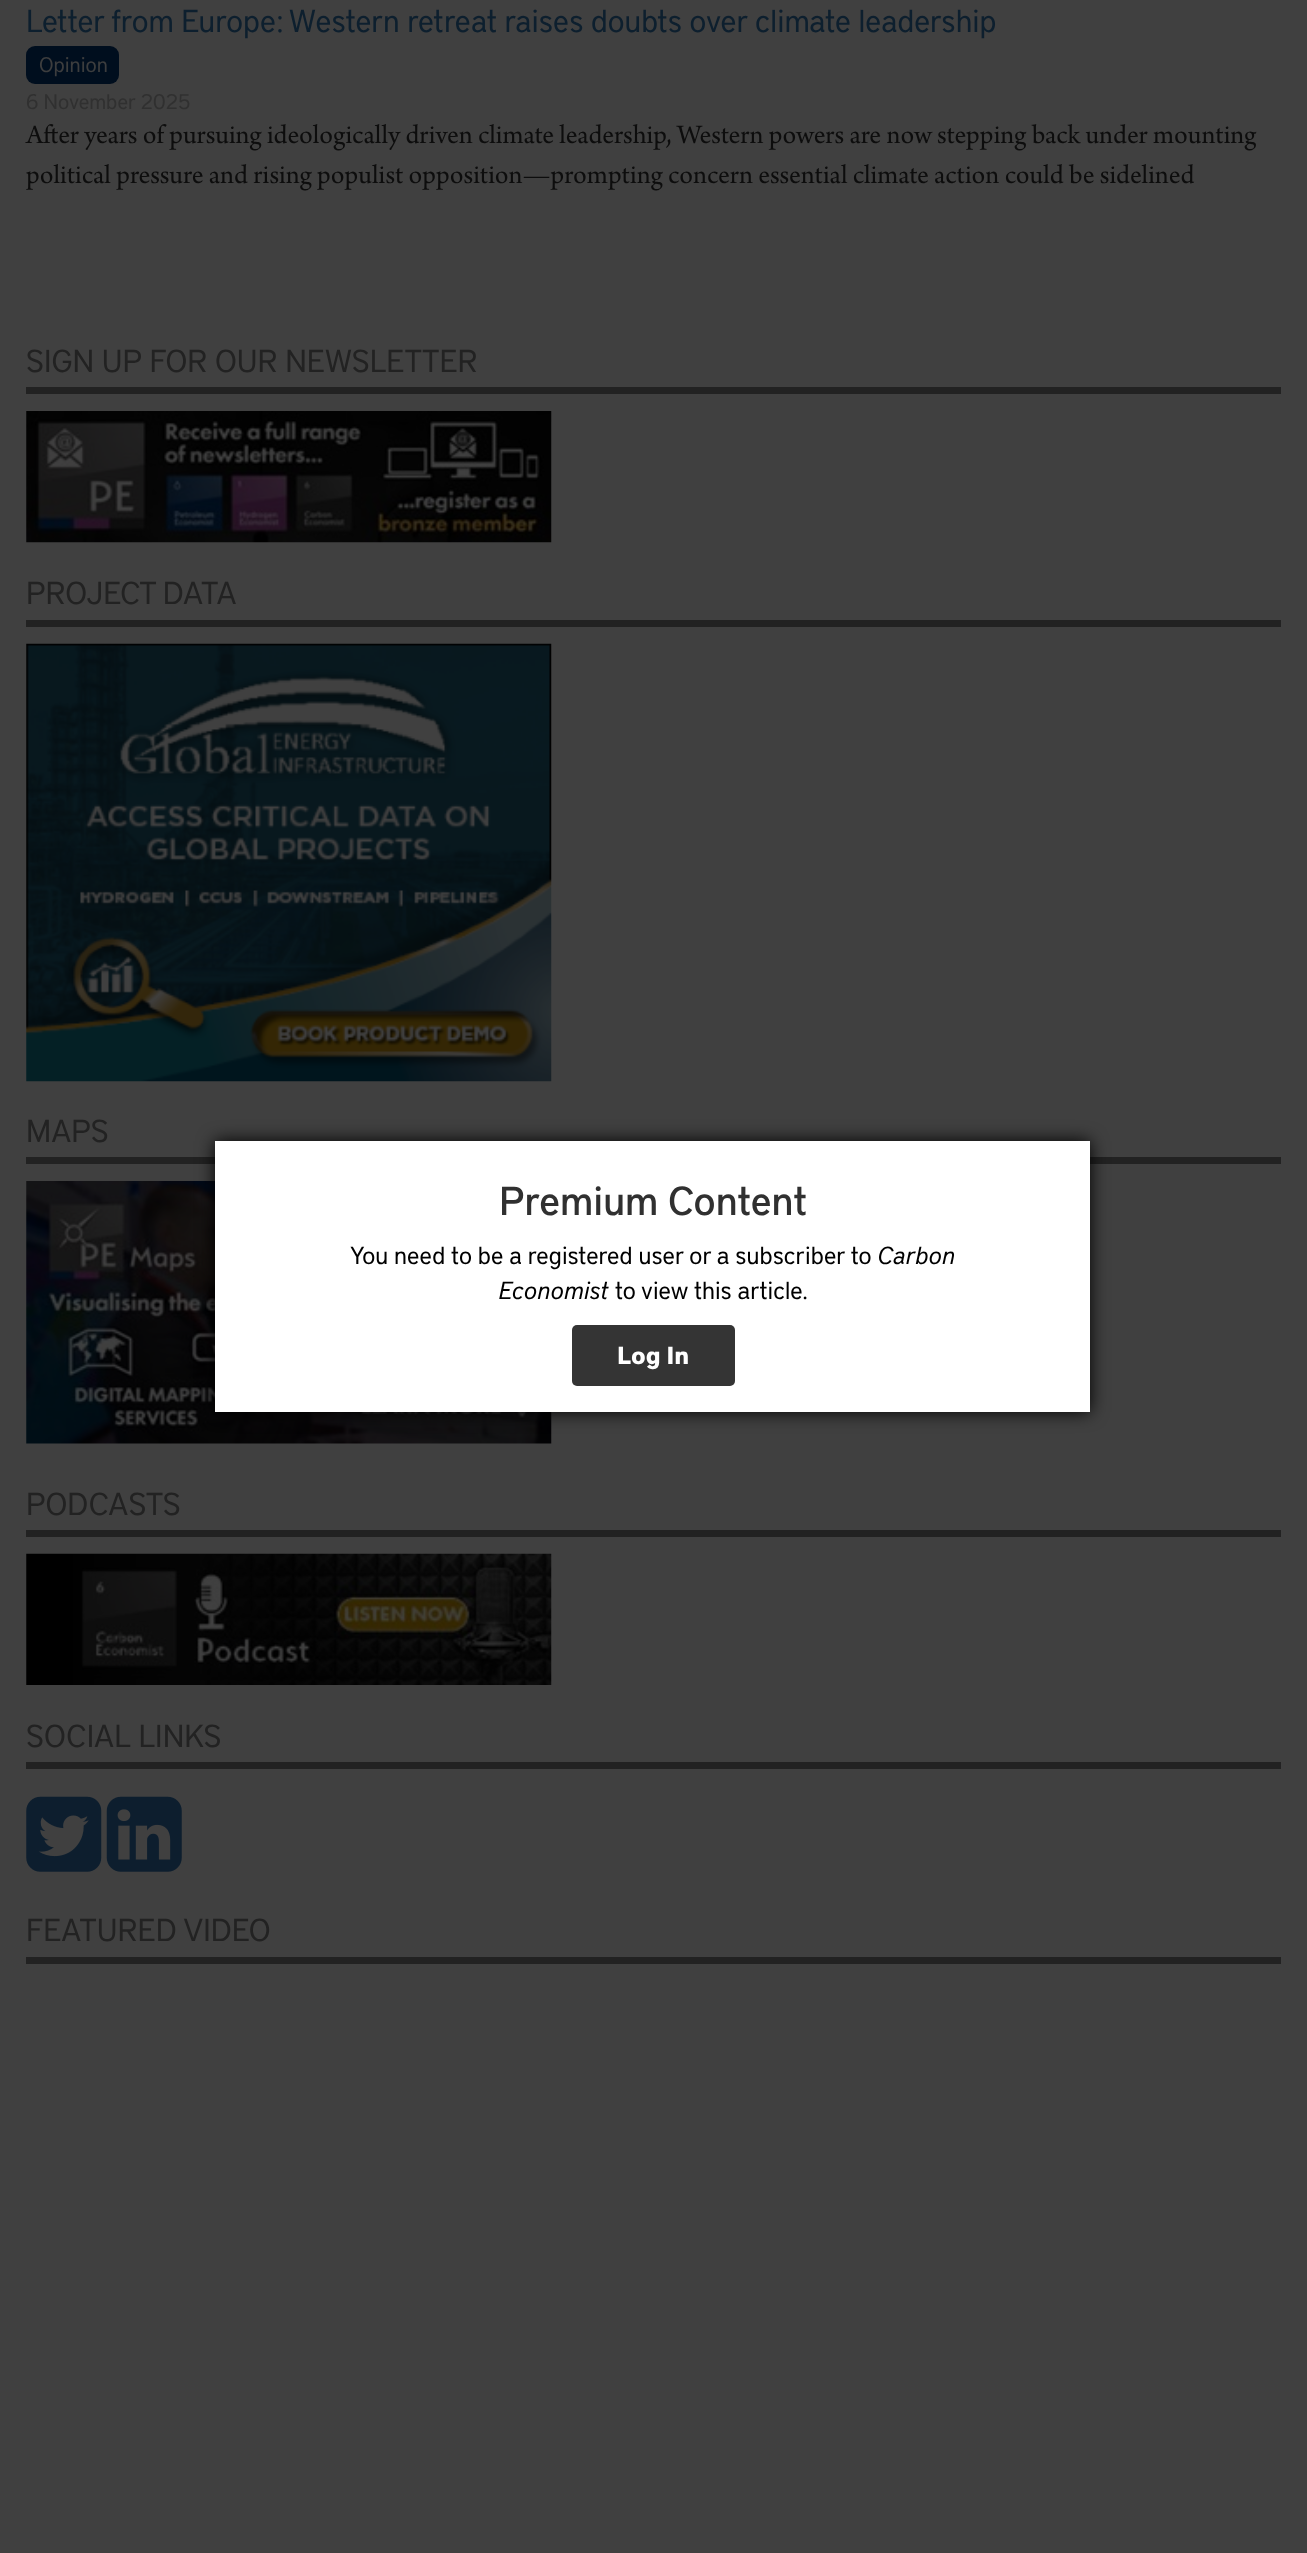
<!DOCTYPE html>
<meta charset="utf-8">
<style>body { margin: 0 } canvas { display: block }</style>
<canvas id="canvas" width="1307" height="2553"></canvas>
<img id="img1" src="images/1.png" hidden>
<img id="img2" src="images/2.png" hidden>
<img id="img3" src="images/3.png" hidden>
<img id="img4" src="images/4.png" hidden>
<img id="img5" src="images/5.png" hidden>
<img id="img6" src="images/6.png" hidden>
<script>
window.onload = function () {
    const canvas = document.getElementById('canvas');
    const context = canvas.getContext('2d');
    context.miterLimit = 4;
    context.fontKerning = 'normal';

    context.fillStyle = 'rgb(64, 64, 64)';
    context.fillRect(0, 0, 1307, 2553);
    context.fillStyle = 'rgb(0, 14, 30)';
    context.beginPath();
    context.roundRect(26, 46, 93, 38, 9);
    context.fill();
    context.fillStyle = 'rgb(34, 34, 34)';
    context.fillRect(26, 387, 1255, 7);
    context.drawImage(document.getElementById('img1'), 26, 411, 526, 132);
    context.fillRect(26, 620, 1255, 7);
    context.drawImage(document.getElementById('img2'), 26, 643, 526, 439);
    context.fillRect(26, 1157, 1255, 7);
    context.drawImage(document.getElementById('img3'), 26, 1181, 526, 263);
    context.fillRect(26, 1530, 1255, 7);
    context.drawImage(document.getElementById('img4'), 26, 1553, 526, 132);
    context.fillRect(26, 1762, 1255, 7);
    context.drawImage(document.getElementById('img5'), 26, 1796, 76, 76);
    context.drawImage(document.getElementById('img6'), 106, 1796, 76, 76);
    context.fillRect(26, 1957, 1255, 7);
    context.fillStyle = 'rgb(0, 0, 0)';
    context.filter = 'blur(9px)';
    context.beginPath();
    context.rect(215, 1141, 875, 271);
    context.fill();
    context.filter = 'none';
    context.fillStyle = 'rgb(255, 255, 255)';
    context.fillRect(215, 1141, 875, 271);
    context.fillStyle = 'rgb(52, 52, 52)';
    context.beginPath();
    context.roundRect(572, 1325, 163, 61, 5);
    context.fill();
    context.font = '31.5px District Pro';
    context.fillStyle = 'rgb(13, 31, 46)';
    context.fillText('Letter from Europe: Western retreat raises doubts over climate leadership', 26, 32);
    context.font = '21px District Pro';
    context.fillStyle = 'rgb(60, 61, 62)';
    context.fillText('Opinion', 39, 72);
    context.fillStyle = 'rgb(48, 48, 48)';
    context.fillText('6 November 2025', 26, 109);
    context.font = '28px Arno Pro';
    context.fillStyle = 'rgb(13, 13, 13)';
    context.fillText('After years of pursuing ideologically driven climate leadership, Western powers are now stepping back under mounting', 26, 143);
    context.fillText('political pressure and rising populist opposition—prompting concern essential climate action could be sidelined', 26, 183);
    context.font = '31.5px District Pro';
    context.fillStyle = 'rgb(34, 34, 34)';
    context.fillText('SIGN UP FOR OUR NEWSLETTER', 26, 372);
    context.fillText('PROJECT DATA', 26, 604);
    context.fillText('MAPS', 26, 1142);
    context.fillText('PODCASTS', 26, 1515);
    context.fillText('SOCIAL LINKS', 26, 1747);
    context.fillText('FEATURED VIDEO', 26, 1941);
    context.font = '500 40.25px District Pro';
    context.fillStyle = 'rgb(48, 48, 48)';
    context.fillText('Premium Content', 499, 1215);
    context.font = '24.5px District Pro';
    context.fillStyle = 'rgb(0, 0, 0)';
    context.fillText('You need to be a registered user or a subscriber to', 350, 1264);
    context.font = 'italic 24.5px District Pro';
    context.fillText('Carbon', 878, 1264);
    context.fillText('Economist', 499, 1299);
    context.font = '24.5px District Pro';
    context.fillText('to view this article.', 615, 1299);
    context.font = 'bold 24.5px District Pro';
    context.fillStyle = 'rgb(255, 255, 255)';
    context.fillText('Log In', 617, 1364);
};
</script>
